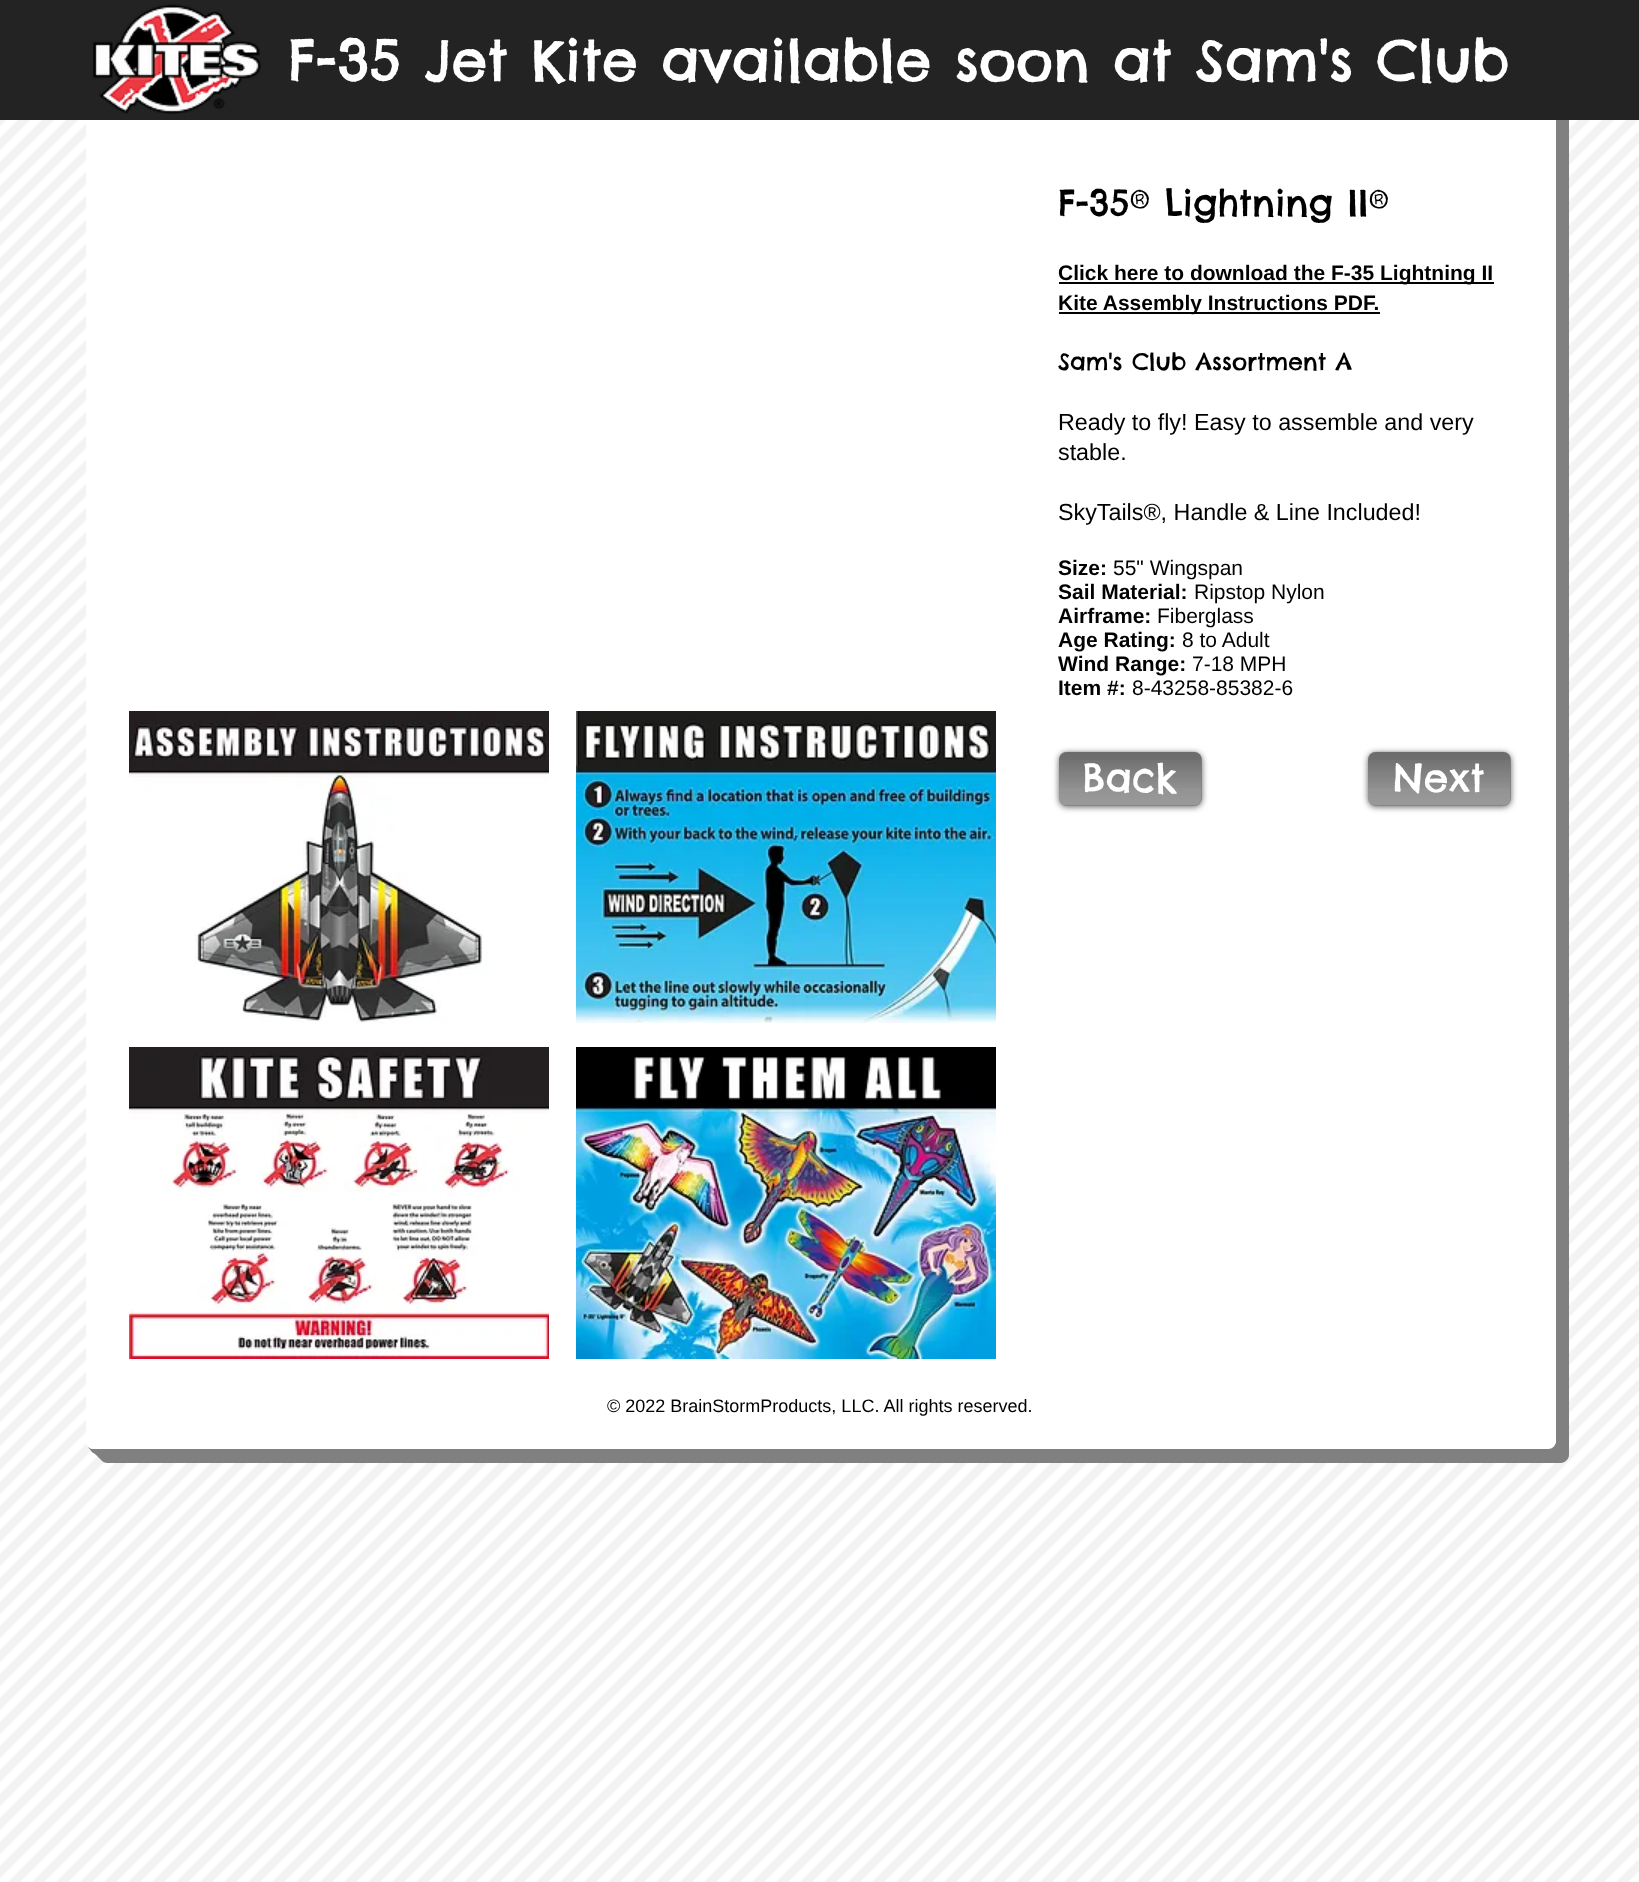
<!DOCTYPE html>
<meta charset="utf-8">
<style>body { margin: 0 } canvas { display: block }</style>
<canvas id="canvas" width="1639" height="1882"></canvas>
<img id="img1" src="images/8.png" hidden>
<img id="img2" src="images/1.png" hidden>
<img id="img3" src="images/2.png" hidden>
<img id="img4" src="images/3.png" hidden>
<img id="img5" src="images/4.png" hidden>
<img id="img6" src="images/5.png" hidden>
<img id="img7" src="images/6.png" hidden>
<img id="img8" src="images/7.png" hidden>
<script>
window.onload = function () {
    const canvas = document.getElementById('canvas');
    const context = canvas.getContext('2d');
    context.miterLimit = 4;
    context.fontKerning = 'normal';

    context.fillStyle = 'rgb(255, 255, 255)';
    context.fillRect(0, 0, 1639, 1882);
    context.drawImage(document.getElementById('img1'), 0, 120, 1639, 1762);
    context.fillStyle = 'rgb(128, 128, 128)';
    context.beginPath();
    context.moveTo(99, 1449);
    context.lineTo(99, 1455);
    context.bezierCurveTo(99, 1459, 103, 1463, 107, 1463);
    context.lineTo(1561, 1463);
    context.bezierCurveTo(1565, 1463, 1569, 1459, 1569, 1455);
    context.lineTo(1569, 22);
    context.bezierCurveTo(1569, 18, 1565, 14, 1561, 14);
    context.lineTo(1556, 14);
    context.lineTo(1556, 1442);
    context.bezierCurveTo(1556, 1446, 1552, 1449, 1548, 1449);
    context.closePath();
    context.fill();
    context.beginPath();
    context.moveTo(96, 1449);
    context.lineTo(96, 1452);
    context.bezierCurveTo(96, 1456, 100, 1460, 104, 1460);
    context.lineTo(1558, 1460);
    context.bezierCurveTo(1562, 1460, 1566, 1456, 1566, 1452);
    context.lineTo(1566, 19);
    context.bezierCurveTo(1566, 15, 1562, 11, 1558, 11);
    context.lineTo(1556, 11);
    context.lineTo(1556, 1442);
    context.bezierCurveTo(1556, 1446, 1552, 1449, 1548, 1449);
    context.closePath();
    context.fill();
    context.beginPath();
    context.moveTo(93, 1449);
    context.bezierCurveTo(93, 1453, 97, 1457, 101, 1457);
    context.lineTo(1555, 1457);
    context.bezierCurveTo(1559, 1457, 1563, 1453, 1563, 1449);
    context.lineTo(1563, 16);
    context.bezierCurveTo(1563, 12, 1560, 8, 1556, 8);
    context.lineTo(1556, 1442);
    context.bezierCurveTo(1556, 1446, 1552, 1449, 1548, 1449);
    context.closePath();
    context.fill();
    context.beginPath();
    context.moveTo(90, 1449);
    context.bezierCurveTo(91, 1452, 94, 1454, 98, 1454);
    context.lineTo(1552, 1454);
    context.bezierCurveTo(1556, 1454, 1560, 1450, 1560, 1446);
    context.lineTo(1560, 13);
    context.bezierCurveTo(1560, 10, 1558, 7, 1555, 6);
    context.lineTo(1556, 1442);
    context.bezierCurveTo(1556, 1446, 1552, 1449, 1548, 1449);
    context.lineTo(93, 1449);
    context.closePath();
    context.fill();
    context.beginPath();
    context.moveTo(88, 1447);
    context.bezierCurveTo(90, 1450, 92, 1451, 95, 1451);
    context.lineTo(1549, 1451);
    context.bezierCurveTo(1553, 1451, 1557, 1447, 1557, 1443);
    context.lineTo(1557, 10);
    context.bezierCurveTo(1557, 8, 1556, 6, 1555, 5);
    context.lineTo(1556, 8);
    context.lineTo(1556, 1442);
    context.bezierCurveTo(1556, 1446, 1552, 1449, 1548, 1449);
    context.lineTo(93, 1449);
    context.bezierCurveTo(91, 1449, 90, 1448, 88, 1447);
    context.closePath();
    context.fill();
    context.fillStyle = 'rgb(255, 255, 255)';
    context.beginPath();
    context.roundRect(86, 0, 1470, 1449, 8);
    context.fill();
    context.fillStyle = 'rgb(36, 35, 35)';
    context.fillRect(0, 0, 1639, 120);
    context.drawImage(document.getElementById('img2'), 93, 4, 168, 110);
    context.fillStyle = 'rgb(0, 0, 0)';
    context.fillRect(1059, 282, 435, 2);
    context.fillRect(1059, 312, 321, 2);
    context.drawImage(document.getElementById('img3'), 129, 711, 420, 312);
    context.drawImage(document.getElementById('img4'), 576, 711, 420, 312);
    context.fillStyle = 'rgba(0, 0, 0, 0.6)';
    context.filter = 'blur(3px)';
    context.beginPath();
    context.roundRect(1059, 753, 143, 54, 8);
    context.fill();
    context.filter = 'none';
    context.fillStyle = 'rgb(129, 129, 129)';
    context.beginPath();
    context.roundRect(1059, 752, 143, 54, 8);
    context.fill();
    context.drawImage(document.getElementById('img5'), 1059, 751, 143, 37);
    context.drawImage(document.getElementById('img6'), 1059, 760, 143, 46);
    context.fillStyle = 'rgba(0, 0, 0, 0.6)';
    context.filter = 'blur(3px)';
    context.beginPath();
    context.roundRect(1368, 753, 143, 54, 8);
    context.fill();
    context.filter = 'none';
    context.fillStyle = 'rgb(129, 129, 129)';
    context.beginPath();
    context.roundRect(1368, 752, 143, 54, 8);
    context.fill();
    context.drawImage(document.getElementById('img5'), 1368, 751, 143, 37);
    context.drawImage(document.getElementById('img6'), 1368, 760, 143, 46);
    context.drawImage(document.getElementById('img7'), 129, 1047, 420, 312);
    context.drawImage(document.getElementById('img8'), 576, 1047, 420, 312);
    context.font = '57px Chelsea Market';
    context.fillStyle = 'rgb(255, 255, 255)';
    context.fillText('F-35 Jet Kite available soon at Sam\'s Club', 288, 81);
    context.font = '36px Chelsea Market';
    context.fillStyle = 'rgb(0, 0, 0)';
    context.fillText('F-35® Lightning II®', 1058, 216);
    context.font = 'bold 21px Liberation Sans';
    context.fillText('Click here to download the F-35 Lightning II', 1058, 280);
    context.fillText('Kite Assembly Instructions PDF.', 1058, 310);
    context.font = '23.3px Chelsea Market';
    context.fillText('Sam\'s Club Assortment A', 1058, 370);
    context.font = '23.3px Liberation Sans';
    context.fillText('Ready to fly! Easy to assemble and very', 1058, 430);
    context.fillText('stable.', 1058, 460);
    context.fillText('SkyTails®, Handle & Line Included!', 1058, 520);
    context.font = 'bold 21px Liberation Sans';
    context.fillText('Size:', 1058, 575);
    context.font = '21px Liberation Sans';
    context.fillText('55" Wingspan', 1113, 575);
    context.font = 'bold 21px Liberation Sans';
    context.fillText('Sail Material:', 1058, 599);
    context.font = '21px Liberation Sans';
    context.fillText('Ripstop Nylon', 1194, 599);
    context.font = 'bold 21px Liberation Sans';
    context.fillText('Airframe:', 1058, 623);
    context.font = '21px Liberation Sans';
    context.fillText('Fiberglass', 1157, 623);
    context.font = 'bold 21px Liberation Sans';
    context.fillText('Age Rating:', 1058, 647);
    context.font = '21px Liberation Sans';
    context.fillText('8 to Adult', 1182, 647);
    context.font = 'bold 21px Liberation Sans';
    context.fillText('Wind Range:', 1058, 671);
    context.font = '21px Liberation Sans';
    context.fillText('7-18 MPH', 1192, 671);
    context.font = 'bold 21px Liberation Sans';
    context.fillText('Item #:', 1058, 695);
    context.font = '21px Liberation Sans';
    context.fillText('8-43258-85382-6', 1132, 695);
    context.font = '39px Chelsea Market';
    context.fillStyle = 'rgb(255, 255, 255)';
    context.fillText('Back', 1082, 792);
    context.fillText('Next', 1393, 792);
    context.font = '18px Liberation Sans';
    context.fillStyle = 'rgb(0, 0, 0)';
    context.fillText('© 2022 BrainStormProducts, LLC. All rights reserved.', 607, 1412);
};
</script>
